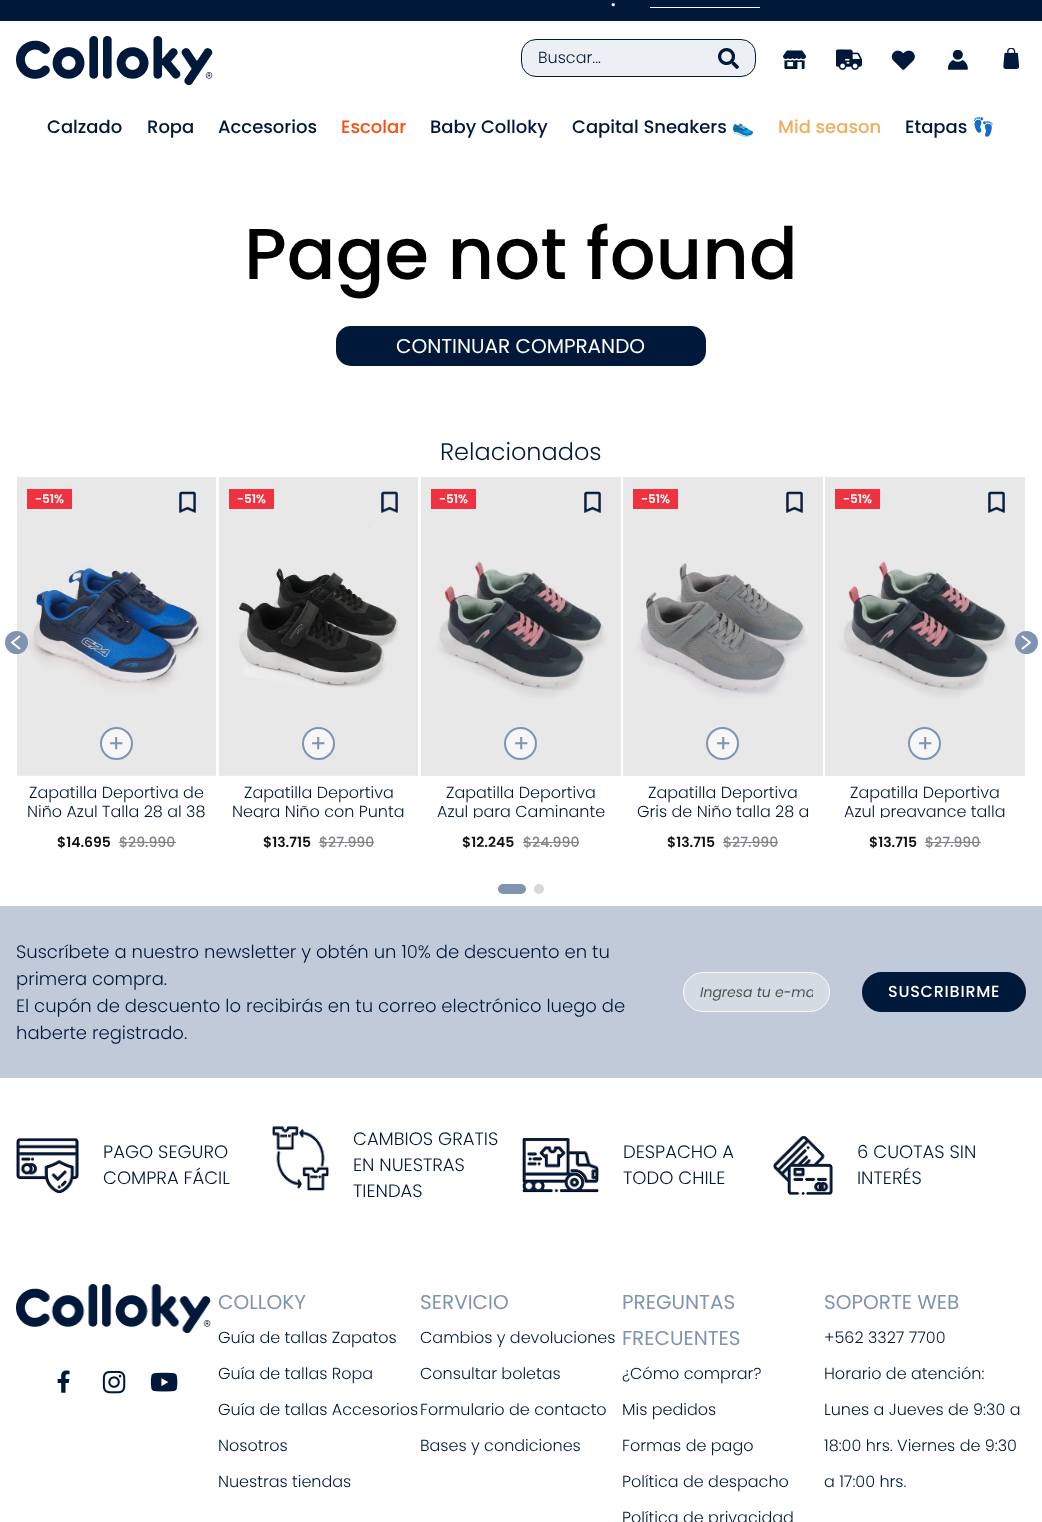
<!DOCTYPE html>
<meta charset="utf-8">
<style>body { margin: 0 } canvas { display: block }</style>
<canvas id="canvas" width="1042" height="1522"></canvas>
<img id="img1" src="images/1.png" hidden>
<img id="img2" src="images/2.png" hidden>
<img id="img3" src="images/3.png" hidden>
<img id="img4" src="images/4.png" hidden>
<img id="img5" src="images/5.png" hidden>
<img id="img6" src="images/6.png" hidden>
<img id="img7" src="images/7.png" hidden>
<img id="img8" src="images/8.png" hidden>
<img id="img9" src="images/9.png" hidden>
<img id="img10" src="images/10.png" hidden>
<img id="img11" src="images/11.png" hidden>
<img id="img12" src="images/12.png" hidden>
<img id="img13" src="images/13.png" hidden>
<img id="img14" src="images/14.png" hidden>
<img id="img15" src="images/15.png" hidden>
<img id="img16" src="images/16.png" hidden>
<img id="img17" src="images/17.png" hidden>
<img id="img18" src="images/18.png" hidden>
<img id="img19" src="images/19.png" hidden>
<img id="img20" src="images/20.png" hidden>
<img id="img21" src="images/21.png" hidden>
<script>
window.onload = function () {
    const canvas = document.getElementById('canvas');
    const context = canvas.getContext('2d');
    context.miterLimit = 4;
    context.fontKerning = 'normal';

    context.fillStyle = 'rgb(255, 255, 255)';
    context.fillRect(0, 0, 1042, 1522);
    context.fillStyle = 'rgb(0, 24, 57)';
    context.fillRect(0, 0, 1042, 21);
    context.fillStyle = 'rgb(255, 255, 255)';
    context.fillRect(650, 7, 110, 1);
    context.drawImage(document.getElementById('img1'), 16, 36, 197, 50);
    context.fillStyle = 'rgb(236, 239, 243)';
    context.beginPath();
    context.roundRect(521.5, 39.5, 234, 37, 14.5);
    context.fill();
    context.strokeStyle = 'rgb(0, 24, 57)';
    context.stroke();
    context.drawImage(document.getElementById('img2'), 718, 48, 21, 21);
    context.drawImage(document.getElementById('img3'), 783, 50, 23, 19);
    context.drawImage(document.getElementById('img4'), 836, 49, 26, 21);
    context.drawImage(document.getElementById('img5'), 891, 50, 24, 20);
    context.drawImage(document.getElementById('img6'), 948, 50, 20, 20);
    context.drawImage(document.getElementById('img7'), 1003, 48, 16, 21);
    context.fillStyle = 'rgb(0, 24, 57)';
    context.beginPath();
    context.roundRect(336, 326, 370, 40, 15);
    context.fill();
    context.drawImage(document.getElementById('img8'), 17, 477, 199, 299);
    context.fillStyle = 'rgb(128, 148, 177)';
    context.beginPath();
    context.arc(16.5, 642.5, 11.5, 0, 2 * Math.PI);
    context.fill();
    context.beginPath();
    context.moveTo(19.5, 648.5);
    context.lineTo(12, 642.5);
    context.lineTo(19.5, 636.5);
    context.strokeStyle = 'rgb(255, 255, 255)';
    context.lineWidth = 2;
    context.lineCap = 'round';
    context.lineJoin = 'round';
    context.stroke();
    context.fillStyle = 'rgb(239, 50, 64)';
    context.fillRect(27, 489, 45, 20);
    context.fillStyle = 'rgb(246, 246, 246)';
    context.beginPath();
    context.arc(116.5, 743.5, 15.5, 0, 2 * Math.PI);
    context.fill();
    context.strokeStyle = 'rgb(128, 148, 177)';
    context.stroke();
    context.drawImage(document.getElementById('img9'), 179, 491, 17, 22);
    context.fillStyle = 'rgb(130, 130, 136)';
    context.fillRect(119, 842, 57, 1);
    context.drawImage(document.getElementById('img10'), 219, 477, 199, 299);
    context.fillStyle = 'rgb(239, 50, 64)';
    context.fillRect(229, 489, 45, 20);
    context.fillStyle = 'rgb(246, 246, 246)';
    context.beginPath();
    context.arc(318.5, 743.5, 15.5, 0, 2 * Math.PI);
    context.fill();
    context.stroke();
    context.drawImage(document.getElementById('img11'), 381, 491, 17, 22);
    context.fillStyle = 'rgb(130, 130, 136)';
    context.fillRect(319, 842, 55, 1);
    context.drawImage(document.getElementById('img12'), 421, 477, 200, 299);
    context.fillStyle = 'rgb(239, 50, 64)';
    context.fillRect(431, 489, 45, 20);
    context.fillStyle = 'rgb(246, 246, 246)';
    context.beginPath();
    context.arc(520.5, 743.5, 15.5, 0, 2 * Math.PI);
    context.fill();
    context.stroke();
    context.drawImage(document.getElementById('img9'), 584, 491, 17, 22);
    context.fillStyle = 'rgb(130, 130, 136)';
    context.fillRect(523, 842, 56, 1);
    context.drawImage(document.getElementById('img13'), 623, 477, 200, 299);
    context.fillStyle = 'rgb(239, 50, 64)';
    context.fillRect(633, 489, 45, 20);
    context.fillStyle = 'rgb(246, 246, 246)';
    context.beginPath();
    context.arc(722.5, 743.5, 15.5, 0, 2 * Math.PI);
    context.fill();
    context.stroke();
    context.drawImage(document.getElementById('img9'), 786, 491, 17, 22);
    context.fillStyle = 'rgb(130, 130, 136)';
    context.fillRect(723, 842, 55, 1);
    context.drawImage(document.getElementById('img12'), 825, 477, 200, 299);
    context.fillStyle = 'rgb(239, 50, 64)';
    context.fillRect(835, 489, 45, 20);
    context.fillStyle = 'rgb(246, 246, 246)';
    context.beginPath();
    context.arc(924.5, 743.5, 15.5, 0, 2 * Math.PI);
    context.fill();
    context.stroke();
    context.drawImage(document.getElementById('img9'), 988, 491, 17, 22);
    context.fillStyle = 'rgb(130, 130, 136)';
    context.fillRect(925, 842, 56, 1);
    context.fillStyle = 'rgb(128, 148, 177)';
    context.beginPath();
    context.arc(1026.5, 642.5, 11.5, 0, 2 * Math.PI);
    context.fill();
    context.beginPath();
    context.moveTo(1022.5, 636.5);
    context.lineTo(1030, 642.5);
    context.lineTo(1022.5, 648.5);
    context.strokeStyle = 'rgb(255, 255, 255)';
    context.stroke();
    context.beginPath();
    context.roundRect(498, 884, 28, 10, 5);
    context.fill();
    context.fillStyle = 'rgb(216, 216, 216)';
    context.beginPath();
    context.arc(539, 889, 5, 0, 2 * Math.PI);
    context.fill();
    context.fillStyle = 'rgb(192, 202, 216)';
    context.fillRect(0, 906, 1042, 172);
    context.beginPath();
    context.roundRect(683.5, 972.5, 146, 39, 19.5);
    context.lineWidth = 1;
    context.lineJoin = 'miter';
    context.stroke();
    context.fillStyle = 'rgba(255, 255, 255, 0.33)';
    context.beginPath();
    context.roundRect(684, 973, 145, 38, 19);
    context.fill();
    context.fillStyle = 'rgb(0, 24, 57)';
    context.beginPath();
    context.roundRect(863, 973, 162, 38, 19);
    context.fill();
    context.strokeStyle = 'rgb(0, 24, 57)';
    context.lineWidth = 2;
    context.stroke();
    context.drawImage(document.getElementById('img14'), 16, 1138, 63, 55);
    context.drawImage(document.getElementById('img15'), 272, 1126, 57, 65);
    context.drawImage(document.getElementById('img16'), 522, 1138, 77, 55);
    context.drawImage(document.getElementById('img17'), 773, 1136, 60, 59);
    context.drawImage(document.getElementById('img18'), 16, 1284, 195, 50);
    context.drawImage(document.getElementById('img19'), 57, 1370, 13, 23);
    context.drawImage(document.getElementById('img20'), 102, 1370, 24, 24);
    context.drawImage(document.getElementById('img21'), 150, 1372, 28, 20);
    context.font = 'bold 16px Poppins';
    context.fillStyle = 'rgb(255, 255, 255)';
    context.fillText('.', 611, 6);
    context.font = '300 16px Poppins';
    context.fillStyle = 'rgb(0, 24, 57)';
    context.fillText('Buscar...', 538, 63);
    context.font = '500 18px Poppins';
    context.fillText('Calzado', 47, 133);
    context.fillText('Ropa', 147, 133);
    context.fillText('Accesorios', 218, 133);
    context.fillStyle = 'rgb(247, 80, 16)';
    context.fillText('Escolar', 341, 133);
    context.fillStyle = 'rgb(0, 24, 57)';
    context.fillText('Baby Colloky', 430, 133);
    context.fillText('Capital Sneakers', 572, 133);
    context.font = '18px Noto Color Emoji';
    context.fillText('👟', 732, 133);
    context.font = '500 18px Poppins';
    context.fillStyle = 'rgb(240, 174, 97)';
    context.fillText('Mid season', 778, 133);
    context.fillStyle = 'rgb(0, 24, 57)';
    context.fillText('Etapas', 905, 133);
    context.font = '18px Noto Color Emoji';
    context.fillText('👣', 972, 133);
    context.font = '500 72px Poppins';
    context.fillStyle = 'rgb(0, 0, 0)';
    context.fillText('Page not found', 244, 279);
    context.font = '20px Poppins';
    context.fillStyle = 'rgb(255, 255, 255)';
    context.fillText('CONTINUAR COMPRANDO', 396, 353);
    context.font = '300 24px Poppins';
    context.fillStyle = 'rgb(0, 24, 57)';
    context.fillText('Relacionados', 440, 460);
    context.font = '600 12px Poppins';
    context.fillStyle = 'rgb(255, 255, 255)';
    context.fillText('-51%', 35, 503);
    context.font = '24px Poppins';
    context.fillStyle = 'rgb(128, 148, 177)';
    context.fillText('+', 108, 752);
    context.font = '300 16px Poppins';
    context.fillStyle = 'rgb(0, 24, 57)';
    context.fillText('Zapatilla Deportiva de', 29, 798);
    context.fillText('Niño Azul Talla 28 al 38', 27, 817);
    context.font = '600 14px Poppins';
    context.fillStyle = 'rgb(17, 17, 17)';
    context.fillText('$14.695', 57, 847);
    context.font = '500 14px Poppins';
    context.fillStyle = 'rgb(130, 130, 136)';
    context.fillText('$29.990', 119, 847);
    context.font = '600 12px Poppins';
    context.fillStyle = 'rgb(255, 255, 255)';
    context.fillText('-51%', 237, 503);
    context.font = '24px Poppins';
    context.fillStyle = 'rgb(128, 148, 177)';
    context.fillText('+', 310, 752);
    context.font = '300 16px Poppins';
    context.fillStyle = 'rgb(0, 24, 57)';
    context.fillText('Zapatilla Deportiva', 244, 798);
    context.save();
    context.beginPath();
    context.rect(219, 784, 199, 34);
    context.clip();
    context.fillText('Negra Niño con Punta', 232, 817);
    context.restore();
    context.font = '600 14px Poppins';
    context.fillStyle = 'rgb(17, 17, 17)';
    context.fillText('$13.715', 263, 847);
    context.font = '500 14px Poppins';
    context.fillStyle = 'rgb(130, 130, 136)';
    context.fillText('$27.990', 319, 847);
    context.font = '600 12px Poppins';
    context.fillStyle = 'rgb(255, 255, 255)';
    context.fillText('-51%', 439, 503);
    context.font = '24px Poppins';
    context.fillStyle = 'rgb(128, 148, 177)';
    context.fillText('+', 513, 752);
    context.font = '300 16px Poppins';
    context.fillStyle = 'rgb(0, 24, 57)';
    context.fillText('Zapatilla Deportiva', 446, 798);
    context.save();
    context.beginPath();
    context.rect(421, 784, 200, 34);
    context.clip();
    context.fillText('Azul para Caminante', 437, 817);
    context.restore();
    context.font = '600 14px Poppins';
    context.fillStyle = 'rgb(17, 17, 17)';
    context.fillText('$12.245', 462, 847);
    context.font = '500 14px Poppins';
    context.fillStyle = 'rgb(130, 130, 136)';
    context.fillText('$24.990', 523, 847);
    context.font = '600 12px Poppins';
    context.fillStyle = 'rgb(255, 255, 255)';
    context.fillText('-51%', 641, 503);
    context.font = '24px Poppins';
    context.fillStyle = 'rgb(128, 148, 177)';
    context.fillText('+', 715, 752);
    context.font = '300 16px Poppins';
    context.fillStyle = 'rgb(0, 24, 57)';
    context.fillText('Zapatilla Deportiva', 648, 798);
    context.fillText('Gris de Niño talla 28 a', 637, 817);
    context.font = '600 14px Poppins';
    context.fillStyle = 'rgb(17, 17, 17)';
    context.fillText('$13.715', 667, 847);
    context.font = '500 14px Poppins';
    context.fillStyle = 'rgb(130, 130, 136)';
    context.fillText('$27.990', 723, 847);
    context.font = '600 12px Poppins';
    context.fillStyle = 'rgb(255, 255, 255)';
    context.fillText('-51%', 843, 503);
    context.font = '24px Poppins';
    context.fillStyle = 'rgb(128, 148, 177)';
    context.fillText('+', 917, 752);
    context.font = '300 16px Poppins';
    context.fillStyle = 'rgb(0, 24, 57)';
    context.fillText('Zapatilla Deportiva', 850, 798);
    context.save();
    context.beginPath();
    context.rect(825, 784, 200, 34);
    context.clip();
    context.fillText('Azul preavance talla', 844, 817);
    context.restore();
    context.font = '600 14px Poppins';
    context.fillStyle = 'rgb(17, 17, 17)';
    context.fillText('$13.715', 869, 847);
    context.font = '500 14px Poppins';
    context.fillStyle = 'rgb(130, 130, 136)';
    context.fillText('$27.990', 925, 847);
    context.font = '300 18px Poppins';
    context.fillStyle = 'rgb(0, 24, 57)';
    context.fillText('Suscríbete a nuestro newsletter y obtén un 10% de descuento en tu', 16, 958);
    context.fillText('primera compra.', 16, 985);
    context.fillText('El cupón de descuento lo recibirás en tu correo electrónico luego de', 16, 1012);
    context.fillText('haberte registrado.', 16, 1039);
    context.save();
    context.beginPath();
    context.rect(700, 982, 113, 21);
    context.clip();
    context.font = 'italic 14px Poppins';
    context.fillStyle = 'rgb(84, 84, 84)';
    context.fillText('Ingresa tu e-ma', 700, 997);
    context.restore();
    context.letterSpacing = '0.75px';
    context.font = '500 16px Poppins';
    context.fillStyle = 'rgb(255, 255, 255)';
    context.fillText('SUSCRIBIRME', 888, 997);
    context.letterSpacing = '0px';
    context.font = '300 18px Poppins';
    context.fillStyle = 'rgb(0, 24, 57)';
    context.fillText('PAGO SEGURO', 103, 1158);
    context.fillText('COMPRA FÁCIL', 103, 1184);
    context.fillText('CAMBIOS GRATIS', 353, 1145);
    context.fillText('EN NUESTRAS', 353, 1171);
    context.fillText('TIENDAS', 353, 1197);
    context.fillText('DESPACHO A', 623, 1158);
    context.fillText('TODO CHILE', 623, 1184);
    context.fillText('6 CUOTAS SIN', 857, 1158);
    context.fillText('INTERÉS', 857, 1184);
    context.font = '20px Poppins';
    context.fillStyle = 'rgb(128, 148, 177)';
    context.fillText('COLLOKY', 218, 1309);
    context.font = '300 16px Poppins';
    context.fillStyle = 'rgb(0, 24, 57)';
    context.fillText('Guía de tallas Zapatos', 218, 1343);
    context.fillText('Guía de tallas Ropa', 218, 1379);
    context.fillText('Guía de tallas Accesorios', 218, 1415);
    context.fillText('Nosotros', 218, 1451);
    context.fillText('Nuestras tiendas', 218, 1487);
    context.font = '20px Poppins';
    context.fillStyle = 'rgb(128, 148, 177)';
    context.fillText('SERVICIO', 420, 1309);
    context.font = '300 16px Poppins';
    context.fillStyle = 'rgb(0, 24, 57)';
    context.fillText('Cambios y devoluciones', 420, 1343);
    context.fillText('Consultar boletas', 420, 1379);
    context.fillText('Formulario de contacto', 420, 1415);
    context.fillText('Bases y condiciones', 420, 1451);
    context.font = '20px Poppins';
    context.fillStyle = 'rgb(128, 148, 177)';
    context.fillText('PREGUNTAS', 622, 1309);
    context.fillText('FRECUENTES', 622, 1345);
    context.font = '300 16px Poppins';
    context.fillStyle = 'rgb(0, 24, 57)';
    context.fillText('¿Cómo comprar?', 622, 1379);
    context.fillText('Mis pedidos', 622, 1415);
    context.fillText('Formas de pago', 622, 1451);
    context.fillText('Política de despacho', 622, 1487);
    context.fillText('Política de privacidad', 622, 1523);
    context.font = '20px Poppins';
    context.fillStyle = 'rgb(128, 148, 177)';
    context.fillText('SOPORTE WEB', 824, 1309);
    context.font = '300 16px Poppins';
    context.fillStyle = 'rgb(0, 24, 57)';
    context.fillText('+562 3327 7700', 824, 1343);
    context.fillText('Horario de atención:', 824, 1379);
    context.fillText('Lunes a Jueves de 9:30 a', 824, 1415);
    context.fillText('18:00 hrs. Viernes de 9:30', 824, 1451);
    context.fillText('a 17:00 hrs.', 824, 1487);
};
</script>
